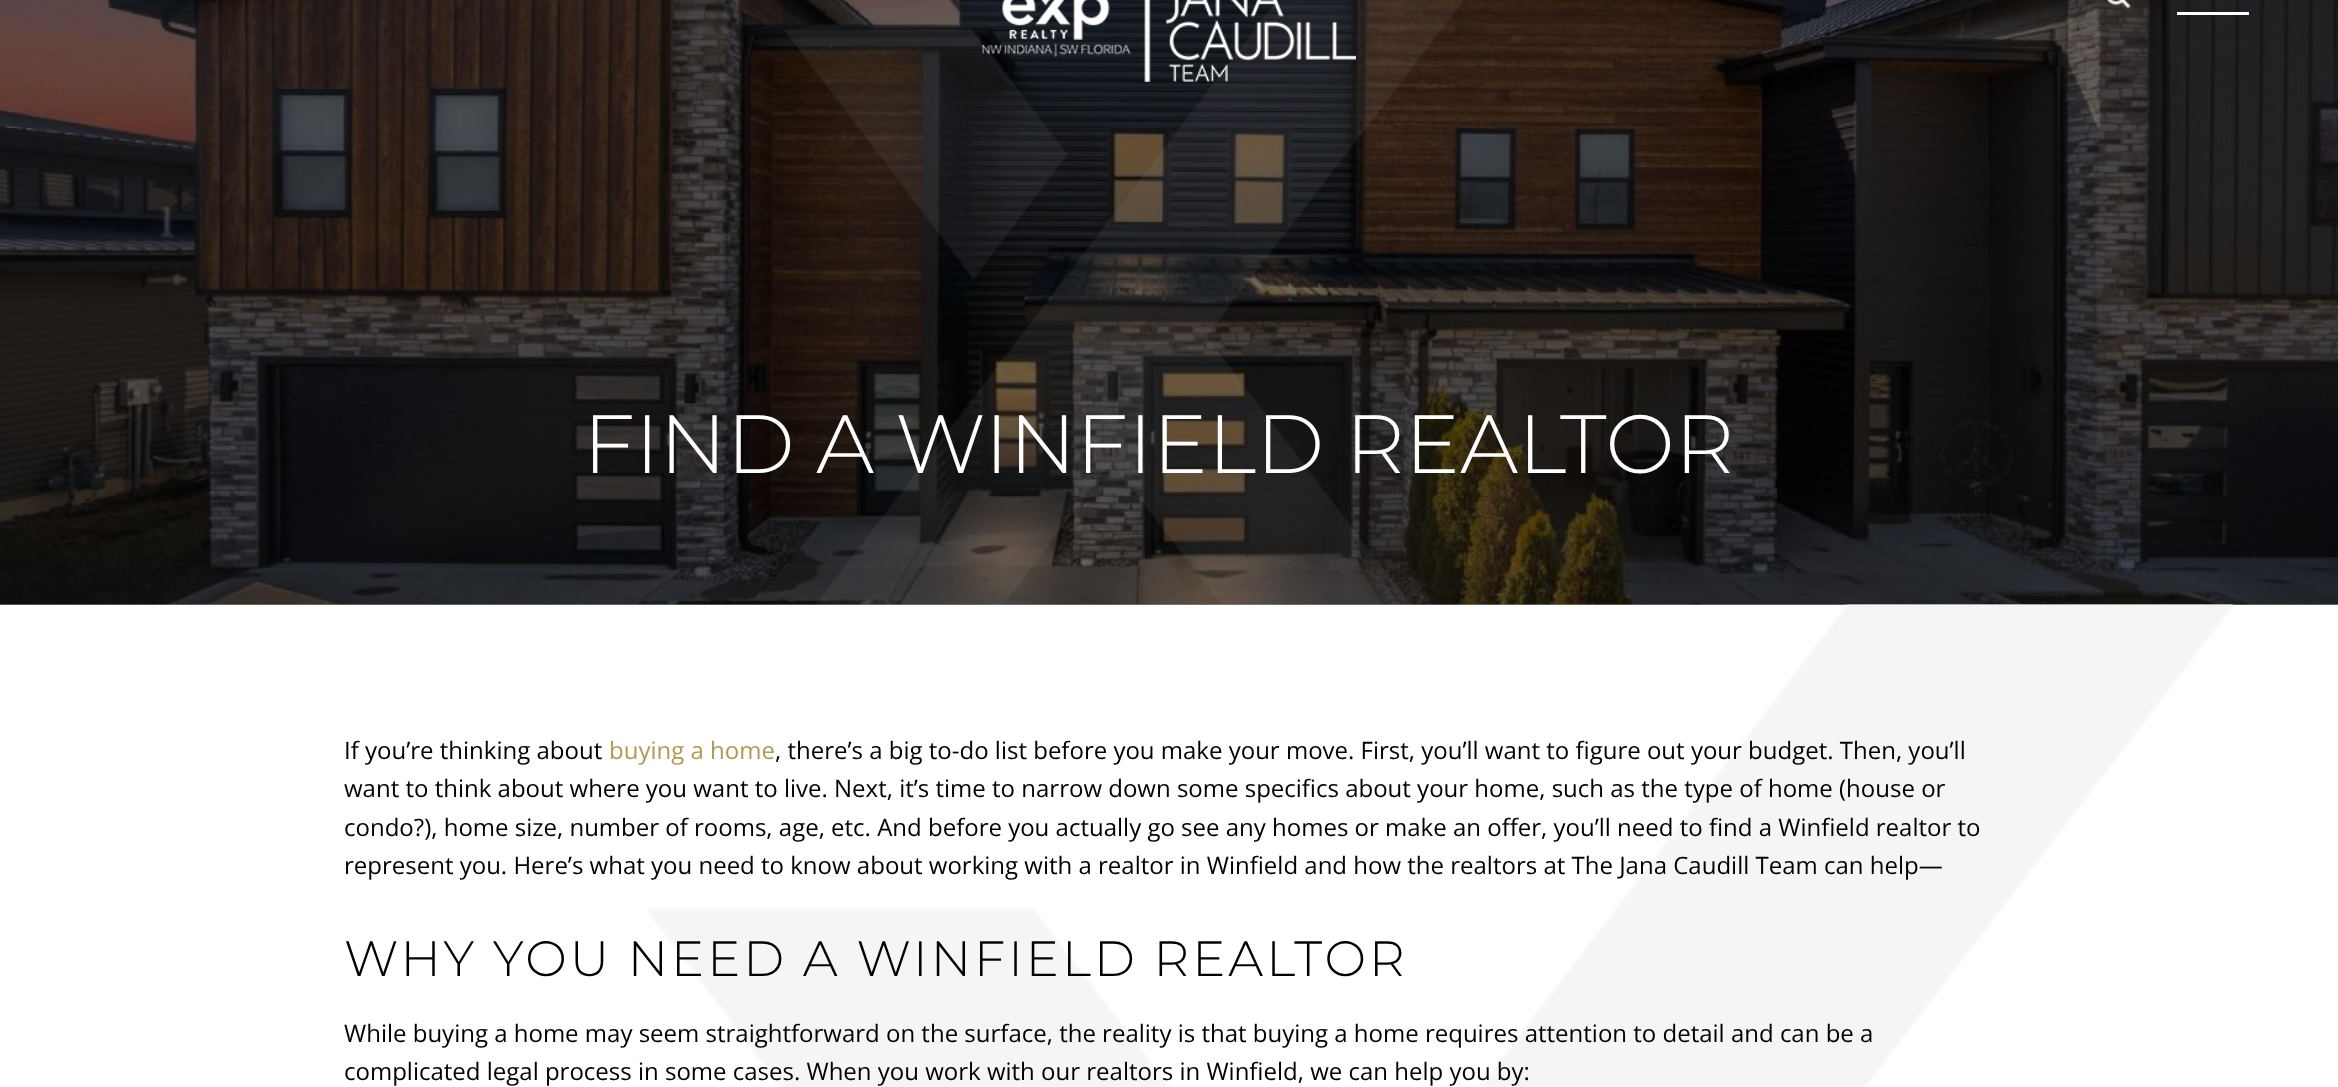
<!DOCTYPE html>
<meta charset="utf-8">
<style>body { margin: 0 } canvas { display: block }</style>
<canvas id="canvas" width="2338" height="1087"></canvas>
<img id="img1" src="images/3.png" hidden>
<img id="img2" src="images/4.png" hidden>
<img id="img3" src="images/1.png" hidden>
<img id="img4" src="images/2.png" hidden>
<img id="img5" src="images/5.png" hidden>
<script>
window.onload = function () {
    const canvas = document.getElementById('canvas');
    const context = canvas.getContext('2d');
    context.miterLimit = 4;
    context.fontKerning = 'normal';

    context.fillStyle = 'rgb(255, 255, 255)';
    context.fillRect(0, 0, 2338, 1087);
    context.fillStyle = 'rgb(153, 153, 153)';
    context.fillRect(0, 604, 2338, 1);
    context.drawImage(document.getElementById('img1'), 0, 0, 2338, 605);
    context.drawImage(document.getElementById('img2'), 784, 0, 681, 605);
    context.drawImage(document.getElementById('img3'), 982, 0, 374, 82);
    context.drawImage(document.getElementById('img4'), 2106, 0, 25, 9);
    context.fillStyle = 'rgb(255, 255, 255)';
    context.fillRect(2177, 12, 72, 3);
    context.drawImage(document.getElementById('img5'), 647, 604, 1587, 483);
    context.font = '300 82.5px Montserrat';
    context.fillText('FIND A WINFIELD REALTOR', 583, 473);
    context.font = '24px Open Sans';
    context.fillStyle = 'rgb(0, 0, 0)';
    context.fillText('If you’re thinking about', 344, 759);
    context.fillStyle = 'rgb(177, 154, 85)';
    context.fillText('buying a home', 609, 759);
    context.fillStyle = 'rgb(0, 0, 0)';
    context.fillText(', there’s a big to-do list before you make your move. First, you’ll want to figure out your budget. Then, you’ll', 775, 759);
    context.fillText('want to think about where you want to live. Next, it’s time to narrow down some specifics about your home, such as the type of home (house or', 344, 797);
    context.fillText('condo?), home size, number of rooms, age, etc. And before you actually go see any homes or make an offer, you’ll need to find a Winfield realtor to', 344, 836);
    context.fillText('represent you. Here’s what you need to know about working with a realtor in Winfield and how the realtors at The Jana Caudill Team can help—', 344, 874);
    context.letterSpacing = '3px';
    context.font = '300 49.5px Montserrat';
    context.fillText('WHY YOU NEED A WINFIELD REALTOR', 344, 976);
    context.letterSpacing = '0px';
    context.font = '24px Open Sans';
    context.fillText('While buying a home may seem straightforward on the surface, the reality is that buying a home requires attention to detail and can be a', 344, 1042);
    context.fillText('complicated legal process in some cases. When you work with our realtors in Winfield, we can help you by:', 344, 1080);
};
</script>
